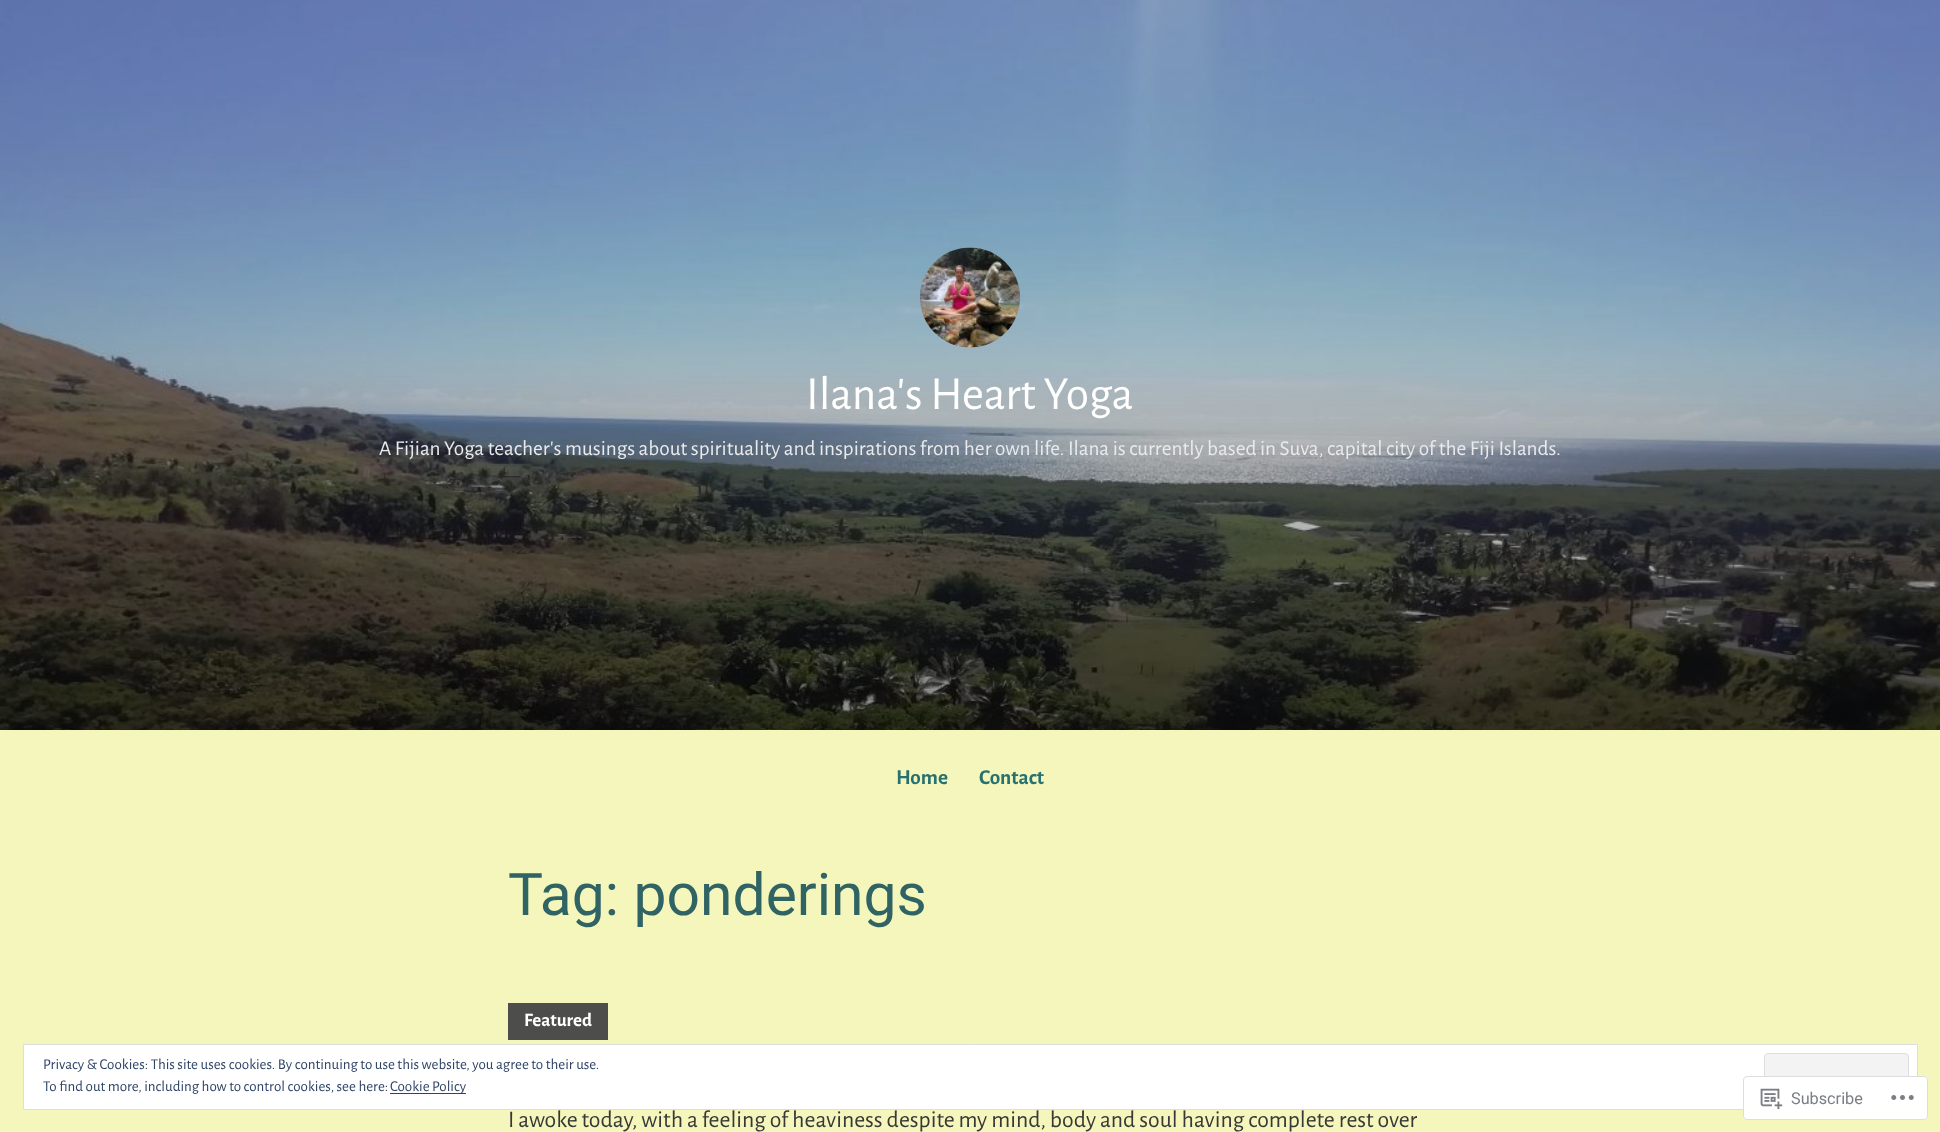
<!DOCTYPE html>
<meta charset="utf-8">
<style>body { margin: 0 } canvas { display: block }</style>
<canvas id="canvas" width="1940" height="1132"></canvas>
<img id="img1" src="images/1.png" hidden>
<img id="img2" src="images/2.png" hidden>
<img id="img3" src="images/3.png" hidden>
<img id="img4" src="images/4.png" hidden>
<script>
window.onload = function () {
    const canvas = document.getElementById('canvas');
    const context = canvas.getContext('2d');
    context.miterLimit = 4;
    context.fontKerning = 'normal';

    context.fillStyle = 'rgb(245, 246, 187)';
    context.fillRect(0, 0, 1940, 1132);
    context.fillStyle = 'rgb(255, 255, 255)';
    context.beginPath();
    context.rect(23.5, 1044.5, 1894, 65);
    context.fill();
    context.strokeStyle = 'rgb(222, 222, 222)';
    context.stroke();
    context.fillStyle = 'rgb(243, 243, 243)';
    context.beginPath();
    context.roundRect(1764.5, 1053.5, 144, 47, 3.5);
    context.fill();
    context.stroke();
    context.fillStyle = 'rgb(46, 68, 103)';
    context.fillRect(390, 1093, 76, 1);
    context.drawImage(document.getElementById('img1'), 0, 0, 1940, 730);
    context.drawImage(document.getElementById('img2'), 920, 247, 100, 101);
    context.fillStyle = 'rgb(77, 77, 75)';
    context.fillRect(508, 1003, 100, 37);
    context.fillStyle = 'rgba(255, 255, 255, 0.98)';
    context.beginPath();
    context.roundRect(1743, 1076, 185, 44, 4);
    context.fill();
    context.beginPath();
    context.roundRect(1743.5, 1076.5, 184, 43, 3.5);
    context.strokeStyle = 'rgba(220, 220, 222, 0.98)';
    context.stroke();
    context.drawImage(document.getElementById('img3'), 1760, 1088, 23, 22);
    context.drawImage(document.getElementById('img4'), 1891, 1095, 23, 5);
    context.font = '15px Alegreya Sans';
    context.fillStyle = 'rgb(46, 68, 103)';
    context.fillText('Privacy & Cookies: This site uses cookies. By continuing to use this website, you agree to their use.', 43, 1069);
    context.fillText('To find out more, including how to control cookies, see here:', 43, 1091);
    context.fillText('Cookie Policy', 390, 1091);
    context.font = '47.5px Alegreya Sans';
    context.fillStyle = 'rgb(255, 255, 255)';
    context.fillText('Ilana\'s Heart Yoga', 806, 409);
    context.font = '21.25px Alegreya Sans';
    context.fillStyle = 'rgb(233, 234, 236)';
    context.fillText('A Fijian Yoga teacher\'s musings about spirituality and inspirations from her own life. Ilana is currently based in Suva, capital city of the Fiji Islands.', 379, 455);
    context.font = 'bold 21.25px Alegreya Sans';
    context.fillStyle = 'rgb(39, 113, 113)';
    context.fillText('Home', 896, 784);
    context.fillText('Contact', 979, 784);
    context.font = '58.75px Roboto';
    context.fillStyle = 'rgb(48, 99, 99)';
    context.fillText('Tag: ponderings', 508, 915);
    context.font = 'bold 19px Alegreya Sans';
    context.fillStyle = 'rgb(255, 255, 255)';
    context.fillText('Featured', 524, 1026);
    context.font = '23.75px Alegreya Sans';
    context.fillStyle = 'rgb(56, 56, 56)';
    context.fillText('I awoke today, with a feeling of heaviness despite my mind, body and soul having complete rest over', 508, 1127);
    context.font = '16.25px Roboto';
    context.fillStyle = 'rgb(123, 127, 132)';
    context.fillText('Subscribe', 1791, 1104);
};
</script>
